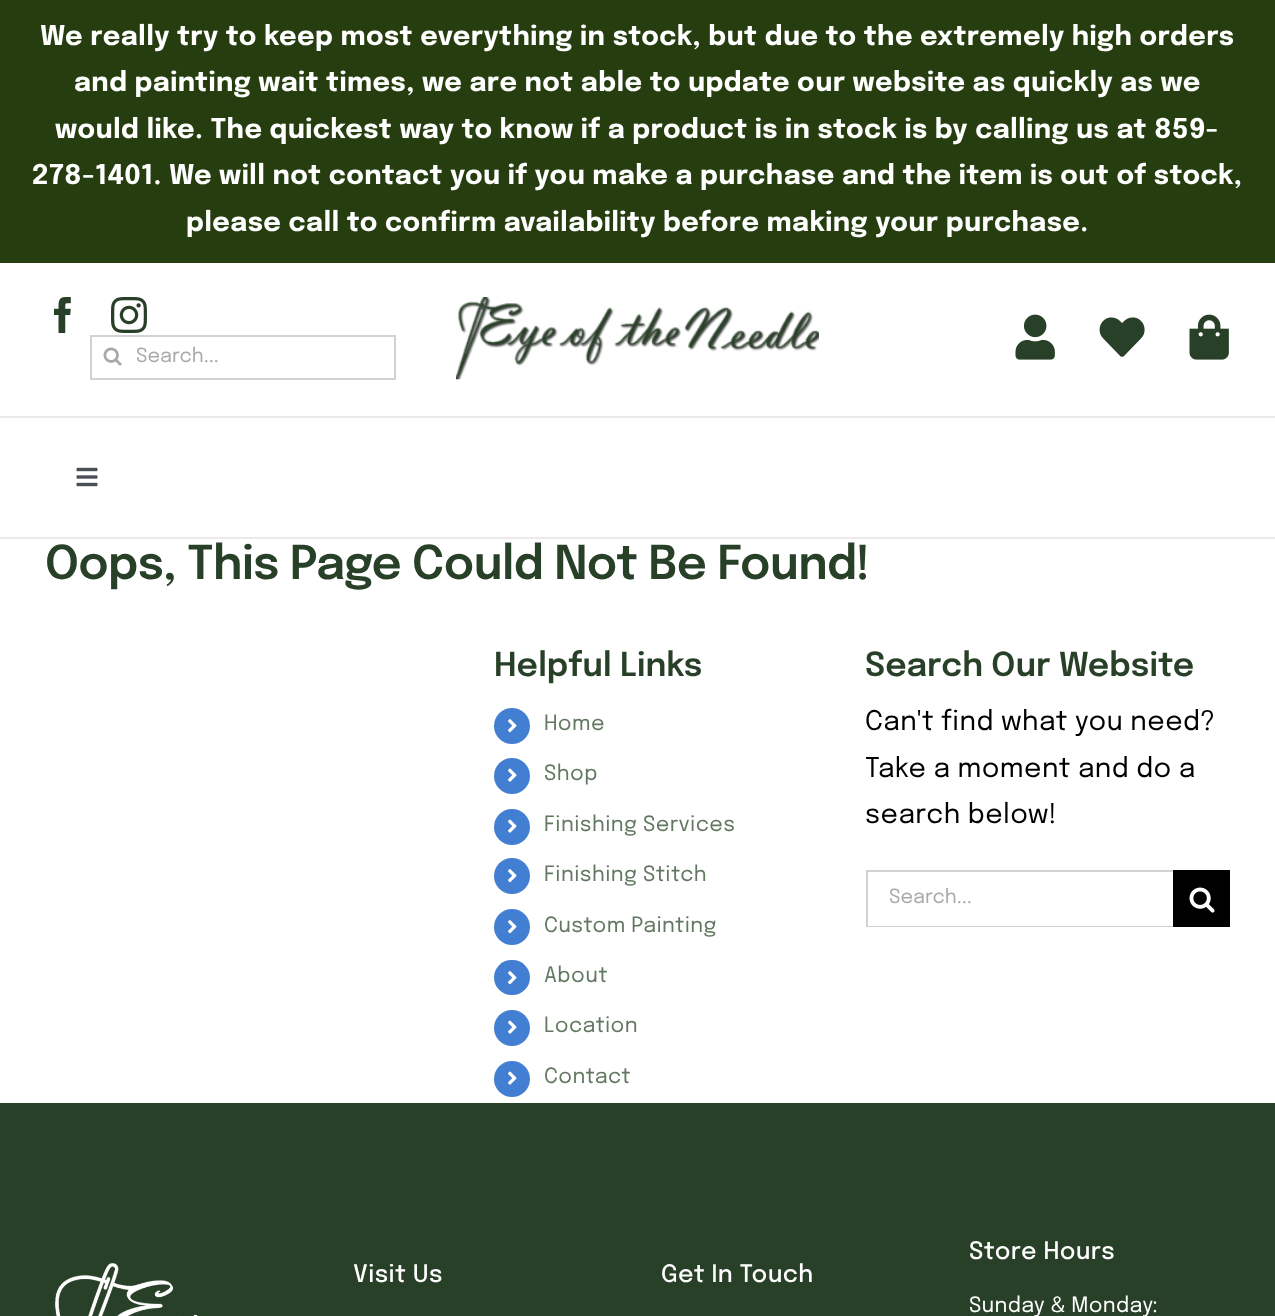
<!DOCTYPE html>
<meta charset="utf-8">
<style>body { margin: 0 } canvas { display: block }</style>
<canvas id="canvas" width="1275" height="1316"></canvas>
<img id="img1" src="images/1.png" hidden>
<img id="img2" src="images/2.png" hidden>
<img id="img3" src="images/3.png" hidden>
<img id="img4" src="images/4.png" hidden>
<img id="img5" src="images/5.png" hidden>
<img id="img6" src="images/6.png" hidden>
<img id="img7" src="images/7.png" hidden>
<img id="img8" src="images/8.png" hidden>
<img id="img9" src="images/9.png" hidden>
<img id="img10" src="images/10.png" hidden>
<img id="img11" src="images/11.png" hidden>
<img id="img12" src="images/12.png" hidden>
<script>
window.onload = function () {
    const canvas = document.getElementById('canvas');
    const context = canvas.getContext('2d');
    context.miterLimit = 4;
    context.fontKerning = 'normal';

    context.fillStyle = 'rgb(38, 62, 15)';
    context.fillRect(0, 0, 1275, 1316);
    context.fillStyle = 'rgb(255, 255, 255)';
    context.fillRect(0, 263, 1275, 840);
    context.drawImage(document.getElementById('img1'), 54, 297, 17, 36);
    context.drawImage(document.getElementById('img2'), 111, 297, 36, 36);
    context.strokeStyle = 'rgb(210, 210, 210)';
    context.lineWidth = 2;
    context.strokeRect(91, 336, 304, 43);
    context.drawImage(document.getElementById('img3'), 103, 347, 19, 19);
    context.drawImage(document.getElementById('img4'), 456, 297, 363, 83);
    context.drawImage(document.getElementById('img5'), 1015, 314, 40, 46);
    context.drawImage(document.getElementById('img6'), 1099, 317, 46, 40);
    context.drawImage(document.getElementById('img7'), 1189, 314, 40, 46);
    context.fillStyle = 'rgb(234, 234, 234)';
    context.fillRect(0, 416, 1275, 2);
    context.fillRect(0, 537, 1275, 2);
    context.drawImage(document.getElementById('img8'), 76, 467, 22, 20);
    context.fillStyle = 'rgb(66, 126, 209)';
    context.beginPath();
    context.arc(512, 726, 18, 0, 2 * Math.PI);
    context.fill();
    context.drawImage(document.getElementById('img9'), 508, 719, 9, 14);
    context.beginPath();
    context.arc(512, 776, 18, 0, 2 * Math.PI);
    context.fill();
    context.drawImage(document.getElementById('img10'), 508, 768, 9, 14);
    context.beginPath();
    context.arc(512, 827, 18, 0, 2 * Math.PI);
    context.fill();
    context.drawImage(document.getElementById('img10'), 508, 819, 9, 14);
    context.beginPath();
    context.arc(512, 876, 18, 0, 2 * Math.PI);
    context.fill();
    context.drawImage(document.getElementById('img9'), 508, 869, 9, 14);
    context.beginPath();
    context.arc(512, 927, 18, 0, 2 * Math.PI);
    context.fill();
    context.drawImage(document.getElementById('img9'), 508, 920, 9, 14);
    context.beginPath();
    context.roundRect(494, 960, 36, 35, 17.5);
    context.fill();
    context.drawImage(document.getElementById('img9'), 508, 971, 9, 14);
    context.beginPath();
    context.arc(512, 1028, 18, 0, 2 * Math.PI);
    context.fill();
    context.drawImage(document.getElementById('img10'), 508, 1020, 9, 14);
    context.beginPath();
    context.arc(512, 1079, 18, 0, 2 * Math.PI);
    context.fill();
    context.drawImage(document.getElementById('img10'), 508, 1071, 9, 14);
    context.fillStyle = 'rgb(210, 210, 210)';
    context.fillRect(866, 870, 307, 2);
    context.fillRect(866, 926, 307, 1);
    context.fillRect(866, 870, 2, 57);
    context.fillStyle = 'rgb(0, 0, 0)';
    context.fillRect(1173, 870, 57, 57);
    context.drawImage(document.getElementById('img11'), 1189, 887, 26, 26);
    context.fillStyle = 'rgb(41, 64, 40)';
    context.fillRect(0, 1103, 1275, 213);
    context.drawImage(document.getElementById('img12'), 54, 1263, 144, 53);
    context.letterSpacing = '0.4px';
    context.font = 'bold 27px Epilogue';
    context.fillStyle = 'rgb(255, 255, 255)';
    context.fillText('We really try to keep most everything in stock, but due to the extremely high orders', 40, 45);
    context.fillText('and painting wait times, we are not able to update our website as quickly as we', 74, 91);
    context.fillText('would like. The quickest way to know if a product is in stock is by calling us at 859-', 55, 138);
    context.fillText('278-1401. We will not contact you if you make a purchase and the item is out of stock,', 32, 184);
    context.fillText('please call to confirm availability before making your purchase.', 186, 231);
    context.letterSpacing = '0px';
    context.font = '19.5px Epilogue';
    context.fillStyle = 'rgb(170, 169, 169)';
    context.fillText('Search...', 136, 362);
    context.letterSpacing = '-0.7px';
    context.font = '600 46.6px Epilogue';
    context.fillStyle = 'rgb(41, 64, 40)';
    context.fillText('Oops, This Page Could Not Be Found!', 45, 579);
    context.letterSpacing = '0px';
    context.font = '600 33px Epilogue';
    context.fillText('Helpful Links', 494, 676);
    context.letterSpacing = '0.4px';
    context.font = '21px Epilogue';
    context.fillStyle = 'rgb(98, 120, 97)';
    context.fillText('Home', 544, 730);
    context.fillText('Shop', 544, 780);
    context.fillText('Finishing Services', 544, 831);
    context.fillText('Finishing Stitch', 544, 881);
    context.fillText('Custom Painting', 544, 932);
    context.fillText('About', 544, 982);
    context.fillText('Location', 544, 1032);
    context.fillText('Contact', 544, 1083);
    context.letterSpacing = '0px';
    context.font = '600 33px Epilogue';
    context.fillStyle = 'rgb(41, 64, 40)';
    context.fillText('Search Our Website', 865, 676);
    context.letterSpacing = '0.4px';
    context.font = '27px Epilogue';
    context.fillStyle = 'rgb(0, 0, 0)';
    context.fillText('Can\'t find what you need?', 865, 730);
    context.fillText('Take a moment and do a', 865, 777);
    context.fillText('search below!', 865, 823);
    context.save();
    context.beginPath();
    context.rect(890, 888, 241, 20);
    context.clip();
    context.letterSpacing = '0px';
    context.font = '19.5px Epilogue';
    context.fillStyle = 'rgb(170, 169, 169)';
    context.fillText('Search...', 889, 903);
    context.restore();
    context.font = '500 24px Epilogue';
    context.fillStyle = 'rgb(255, 255, 255)';
    context.fillText('Visit Us', 353, 1282);
    context.fillText('Get In Touch', 661, 1282);
    context.fillText('Store Hours', 969, 1259);
    context.letterSpacing = '0.3px';
    context.font = '21px Epilogue';
    context.fillText('Sunday & Monday:', 969, 1312);
};
</script>
